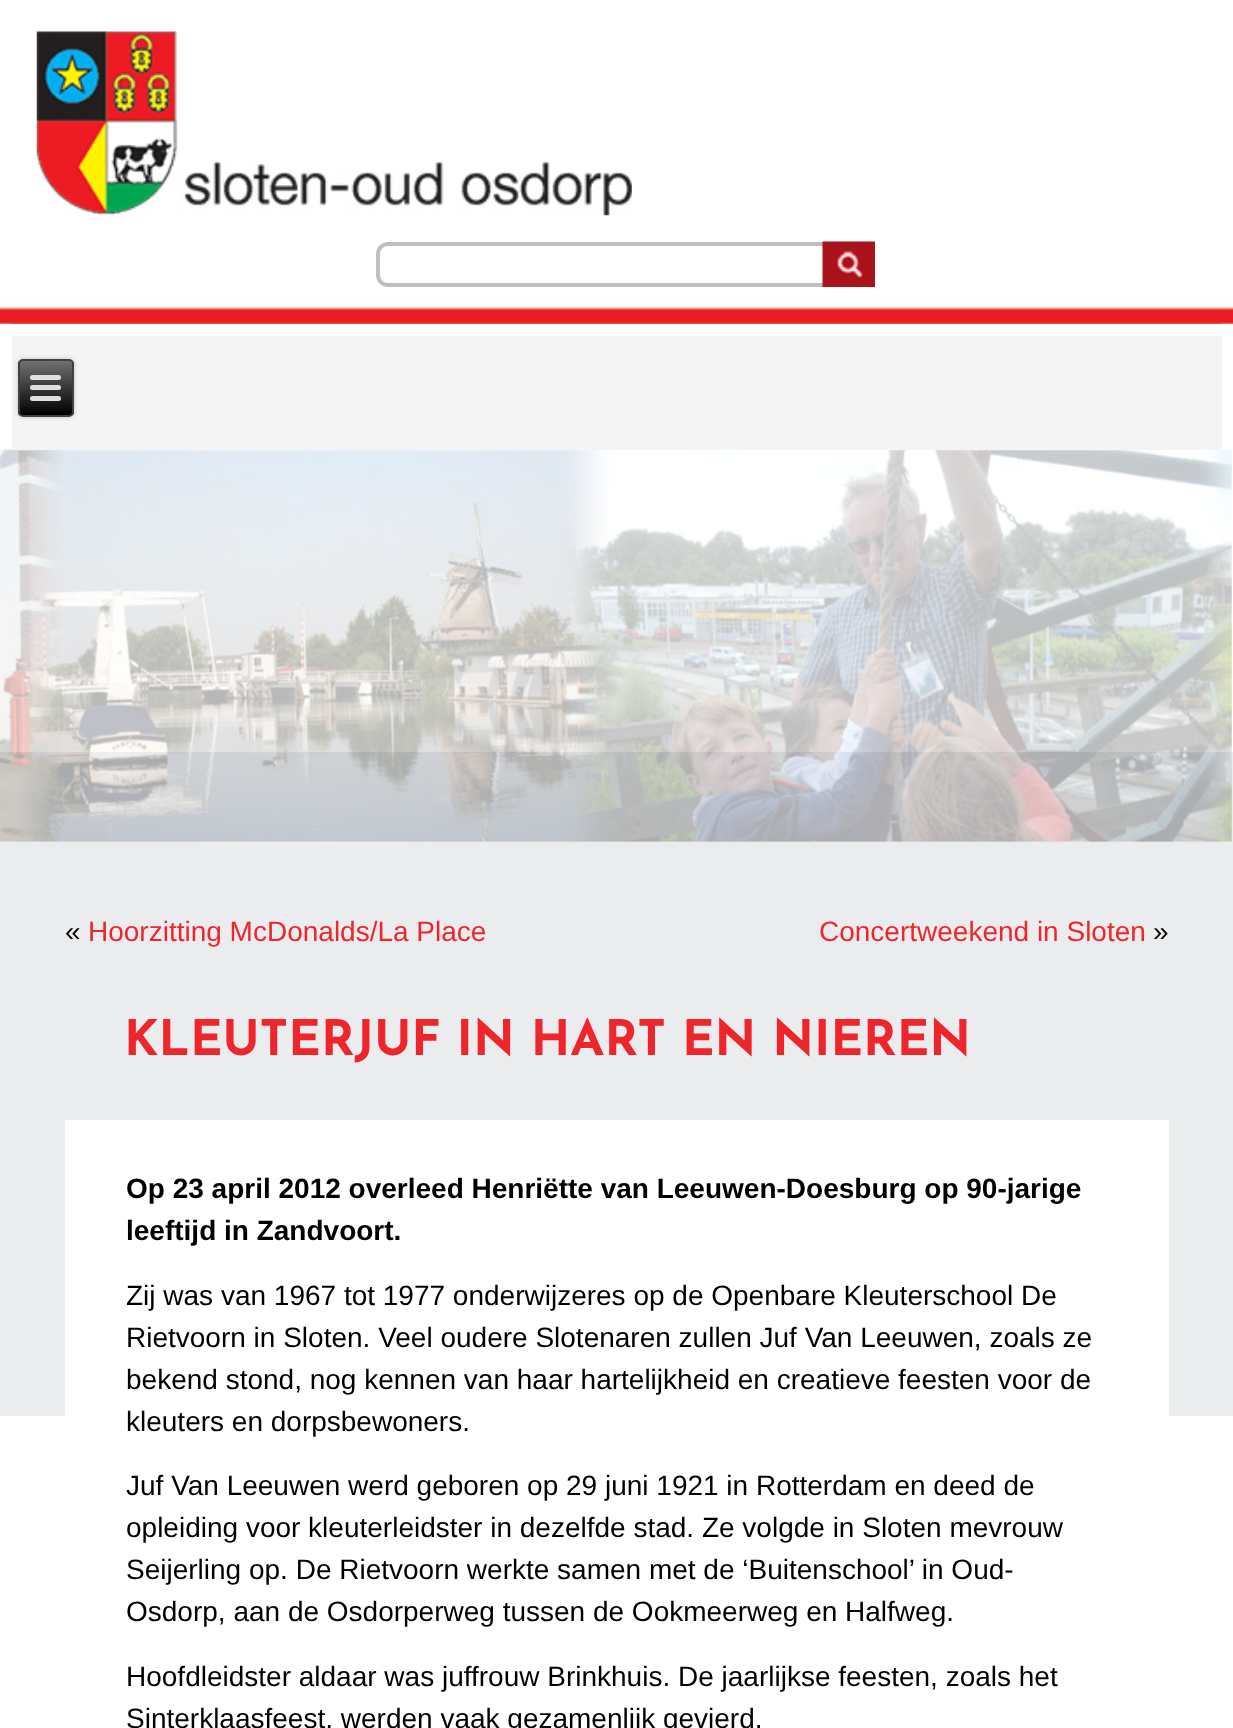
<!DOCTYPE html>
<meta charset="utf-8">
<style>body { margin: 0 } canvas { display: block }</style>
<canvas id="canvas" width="1233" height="1728"></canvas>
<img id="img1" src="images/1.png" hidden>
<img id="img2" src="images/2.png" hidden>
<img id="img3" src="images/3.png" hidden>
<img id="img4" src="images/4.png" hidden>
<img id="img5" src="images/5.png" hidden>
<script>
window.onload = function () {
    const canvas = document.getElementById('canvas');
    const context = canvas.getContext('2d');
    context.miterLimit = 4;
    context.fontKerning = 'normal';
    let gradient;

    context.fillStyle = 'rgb(255, 255, 255)';
    context.fillRect(0, 0, 1233, 1728);
    context.fillStyle = 'rgb(235, 236, 238)';
    context.fillRect(0, 752, 1233, 664);
    context.drawImage(document.getElementById('img1'), 0, 298, 1233, 26);
    context.drawImage(document.getElementById('img2'), 12, 323, 1210, 1);
    context.drawImage(document.getElementById('img3'), 36, 31, 596, 185);
    context.beginPath();
    context.roundRect(378, 244, 495, 41, 10);
    context.strokeStyle = 'rgb(191, 191, 191)';
    context.lineWidth = 4;
    context.stroke();
    context.drawImage(document.getElementById('img4'), 822, 241, 53, 46);
    context.drawImage(document.getElementById('img5'), 0, 449, 1232, 393);
    context.fillStyle = 'rgb(244, 244, 244)';
    context.fillRect(12, 336, 1210, 114);
    context.fillStyle = 'rgba(0, 0, 0, 0.2)';
    context.filter = 'blur(2.5px)';
    context.beginPath();
    context.roundRect(18, 359, 56, 58, 5);
    context.fill();
    context.filter = 'none';
    context.save();
    context.beginPath();
    context.roundRect(18, 359, 56, 58, 5);
    context.clip();
    gradient = context.createLinearGradient(45, 361, 46, 415);
    gradient.addColorStop(0, 'rgb(112, 112, 112)');
    gradient.addColorStop(1, 'rgb(0, 0, 0)');
    context.fillStyle = gradient;
    context.fillRect(18, 361, 56, 54);
    context.restore();
    context.beginPath();
    context.roundRect(19, 360, 54, 56, 4);
    context.strokeStyle = 'rgb(64, 64, 64)';
    context.lineWidth = 2;
    context.stroke();
    context.fillStyle = 'rgb(224, 224, 224)';
    context.beginPath();
    context.roundRect(30, 375, 31, 5, 2.5);
    context.fill();
    context.beginPath();
    context.roundRect(30, 385, 31, 5, 2.5);
    context.fill();
    context.beginPath();
    context.roundRect(30, 396, 31, 5, 2.5);
    context.fill();
    context.fillStyle = 'rgb(255, 255, 255)';
    context.fillRect(65, 1120, 1104, 296);
    context.font = '28px Liberation Sans';
    context.fillStyle = 'rgb(0, 0, 0)';
    context.fillText('«', 65, 941);
    context.fillStyle = 'rgb(239, 37, 44)';
    context.fillText('Hoorzitting McDonalds/La Place', 88, 941);
    context.fillText('Concertweekend in Sloten', 819, 941);
    context.fillStyle = 'rgb(0, 0, 0)';
    context.fillText('»', 1153, 941);
    context.font = 'bold 49px Josefin Sans';
    context.fillStyle = 'rgb(239, 37, 44)';
    context.fillText('KLEUTERJUF IN HART EN NIEREN', 124, 1055);
    context.font = 'bold 28px Liberation Sans';
    context.fillStyle = 'rgb(0, 0, 0)';
    context.fillText('Op 23 april 2012 overleed Henriëtte van Leeuwen-Doesburg op 90-jarige', 126, 1198);
    context.fillText('leeftijd in Zandvoort.', 126, 1240);
    context.font = '28px Liberation Sans';
    context.fillText('Zij was van 1967 tot 1977 onderwijzeres op de Openbare Kleuterschool De', 126, 1305);
    context.fillText('Rietvoorn in Sloten. Veel oudere Slotenaren zullen Juf Van Leeuwen, zoals ze', 126, 1347);
    context.fillText('bekend stond, nog kennen van haar hartelijkheid en creatieve feesten voor de', 126, 1389);
    context.fillText('kleuters en dorpsbewoners.', 126, 1431);
    context.fillText('Juf Van Leeuwen werd geboren op 29 juni 1921 in Rotterdam en deed de', 126, 1495);
    context.fillText('opleiding voor kleuterleidster in dezelfde stad. Ze volgde in Sloten mevrouw', 126, 1537);
    context.fillText('Seijerling op. De Rietvoorn werkte samen met de ‘Buitenschool’ in Oud-', 126, 1579);
    context.fillText('Osdorp, aan de Osdorperweg tussen de Ookmeerweg en Halfweg.', 126, 1621);
    context.fillText('Hoofdleidster aldaar was juffrouw Brinkhuis. De jaarlijkse feesten, zoals het', 126, 1686);
    context.fillText('Sinterklaasfeest, werden vaak gezamenlijk gevierd.', 126, 1728);
};
</script>
